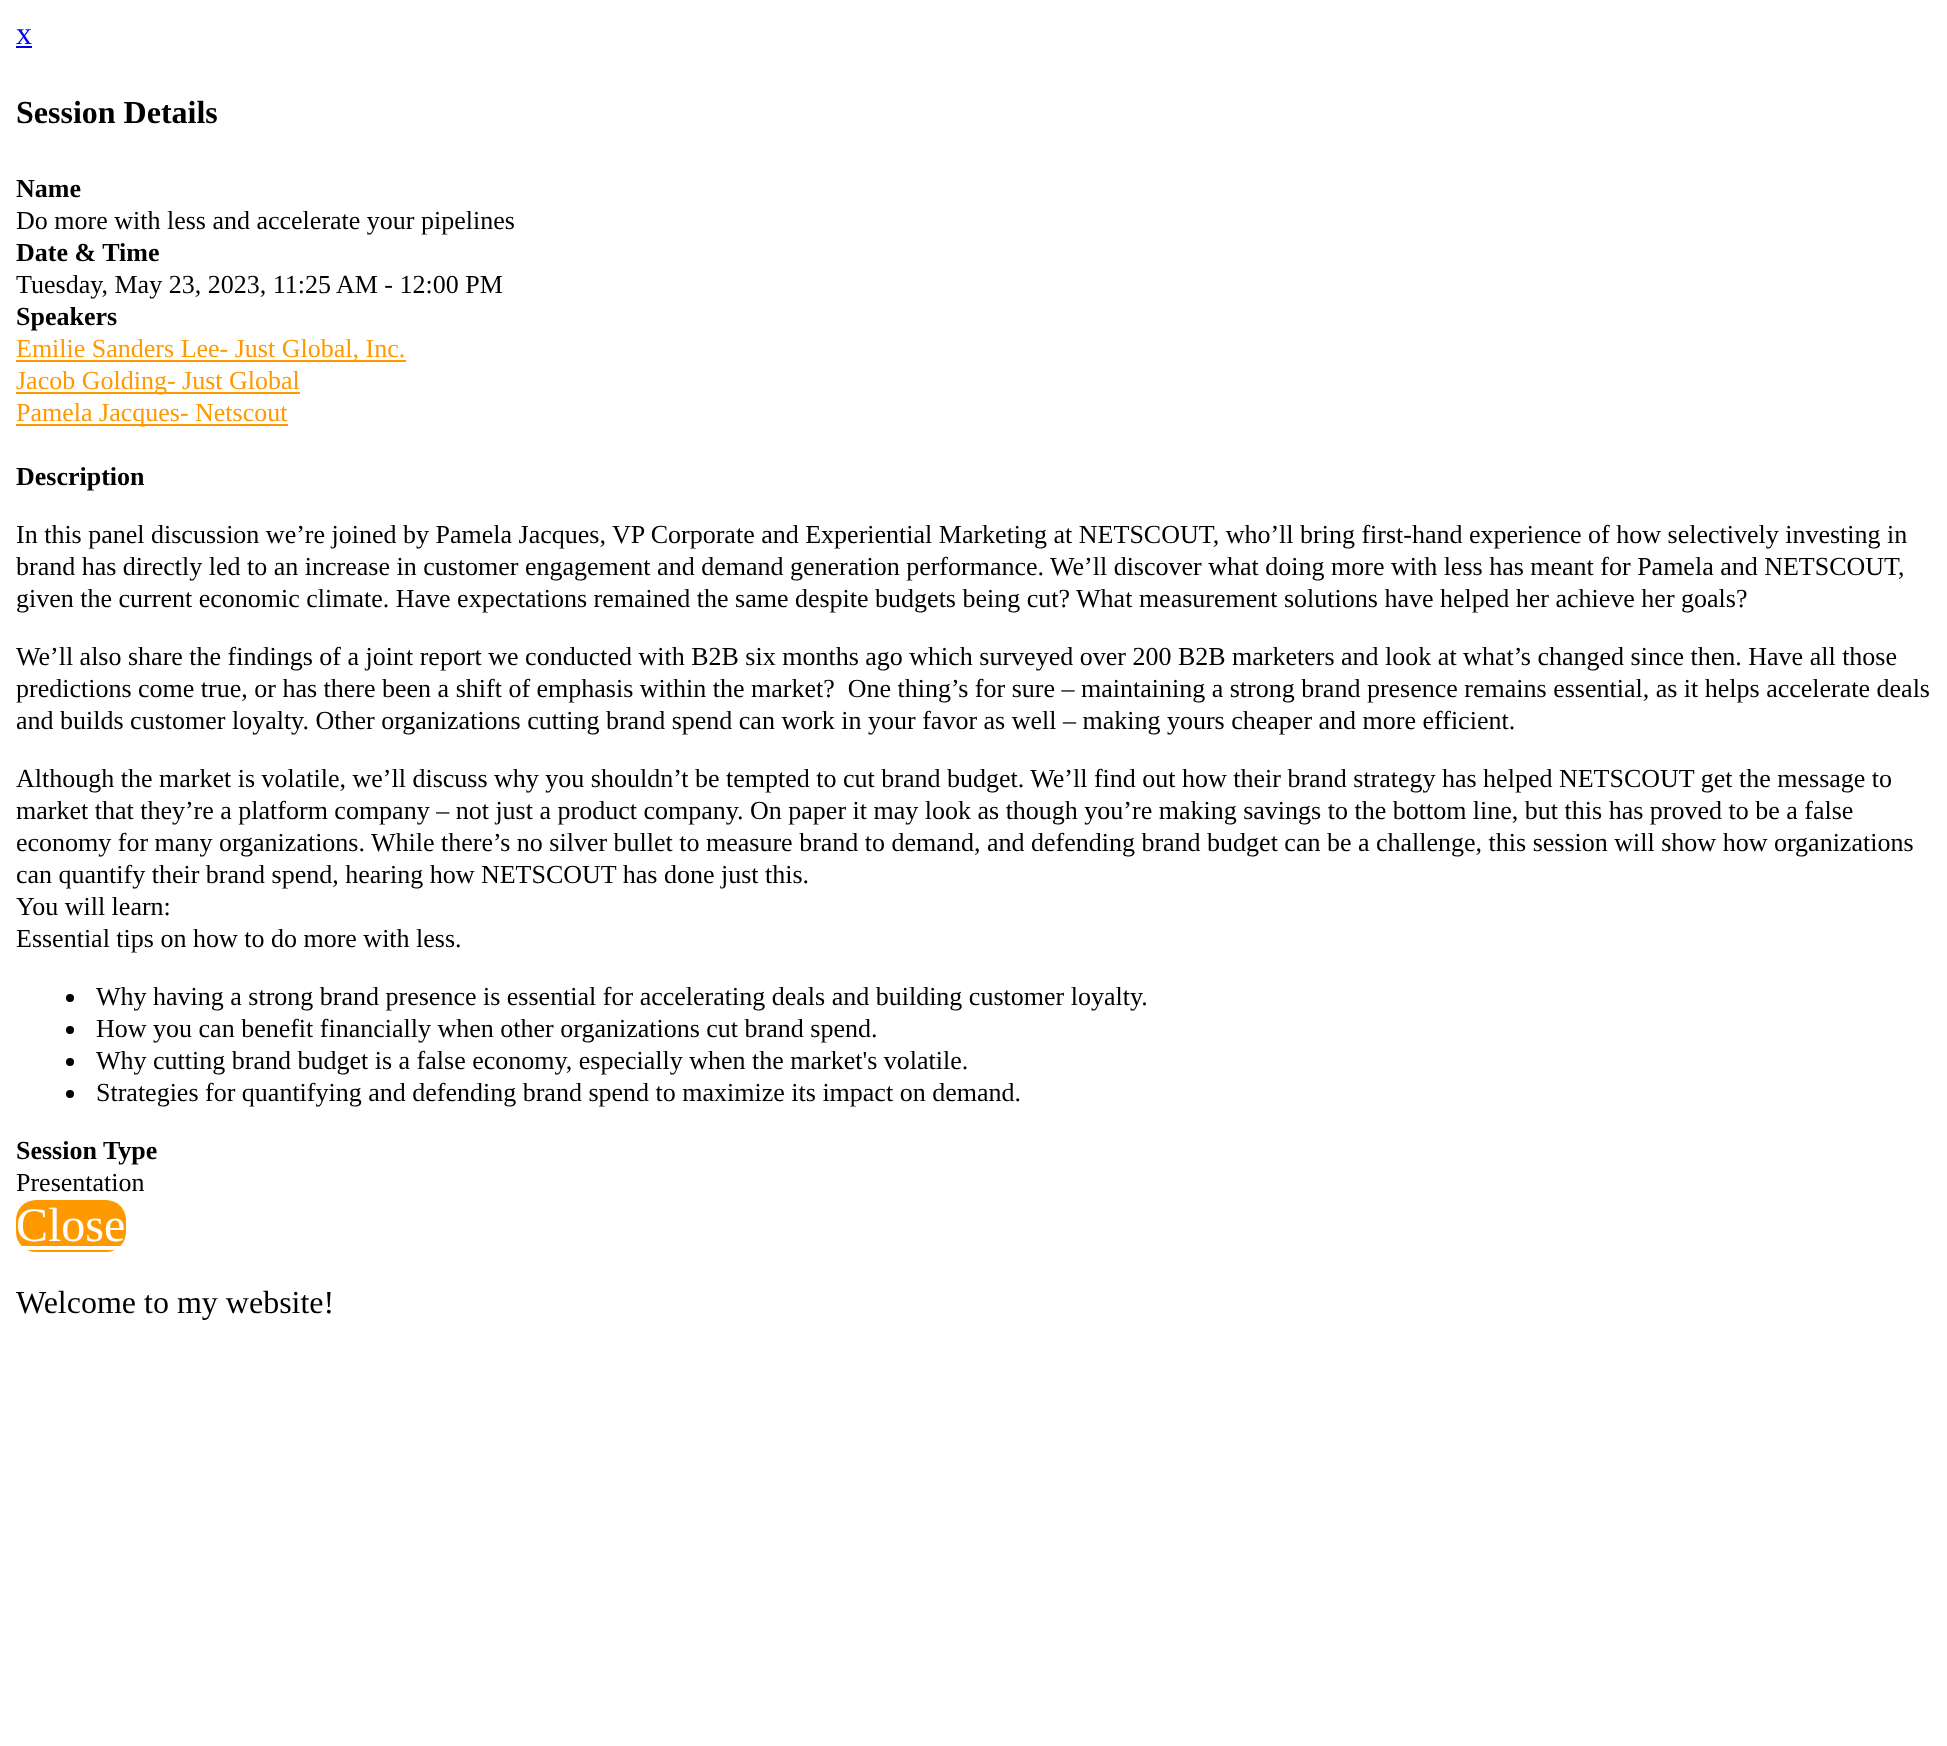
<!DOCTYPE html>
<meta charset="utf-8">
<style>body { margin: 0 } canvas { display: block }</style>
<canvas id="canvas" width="1947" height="1746"></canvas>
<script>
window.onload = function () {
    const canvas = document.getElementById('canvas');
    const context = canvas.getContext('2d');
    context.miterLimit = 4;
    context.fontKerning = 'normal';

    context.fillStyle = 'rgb(255, 255, 255)';
    context.fillRect(0, 0, 1947, 1746);
    context.fillStyle = 'rgb(0, 0, 238)';
    context.fillRect(16, 46, 16, 2);
    context.fillStyle = 'rgb(255, 153, 0)';
    context.fillRect(16, 360, 390, 2);
    context.fillRect(16, 392, 284, 2);
    context.fillRect(16, 424, 272, 2);
    context.fillStyle = 'rgb(0, 0, 0)';
    context.beginPath();
    context.arc(70, 998, 4, 0, 2 * Math.PI);
    context.fill();
    context.beginPath();
    context.arc(70, 1030, 4, 0, 2 * Math.PI);
    context.fill();
    context.beginPath();
    context.arc(70, 1062, 4, 0, 2 * Math.PI);
    context.fill();
    context.beginPath();
    context.arc(70, 1094, 4, 0, 2 * Math.PI);
    context.fill();
    context.fillStyle = 'rgb(255, 153, 0)';
    context.beginPath();
    context.roundRect(16, 1200, 110, 52, 20);
    context.fill();
    context.fillStyle = 'rgb(255, 255, 255)';
    context.fillRect(16, 1246, 110, 4);
    context.font = '32px Liberation Serif';
    context.fillStyle = 'rgb(0, 0, 238)';
    context.fillText('x', 16, 44);
    context.font = 'bold 32px Liberation Serif';
    context.fillStyle = 'rgb(0, 0, 0)';
    context.fillText('Session Details', 16, 123);
    context.font = 'bold 26px Liberation Serif';
    context.fillText('Name', 16, 197);
    context.font = '26px Liberation Serif';
    context.fillText('Do more with less and accelerate your pipelines', 16, 229);
    context.font = 'bold 26px Liberation Serif';
    context.fillText('Date & Time', 16, 261);
    context.font = '26px Liberation Serif';
    context.fillText('Tuesday, May 23, 2023, 11:25 AM - 12:00 PM', 16, 293);
    context.font = 'bold 26px Liberation Serif';
    context.fillText('Speakers', 16, 325);
    context.font = '26px Liberation Serif';
    context.fillStyle = 'rgb(255, 153, 0)';
    context.fillText('Emilie Sanders Lee- Just Global, Inc.', 16, 357);
    context.fillText('Jacob Golding- Just Global', 16, 389);
    context.fillText('Pamela Jacques- Netscout', 16, 421);
    context.font = 'bold 26px Liberation Serif';
    context.fillStyle = 'rgb(0, 0, 0)';
    context.fillText('Description', 16, 485);
    context.font = '26px Liberation Serif';
    context.fillText('In this panel discussion we’re joined by Pamela Jacques, VP Corporate and Experiential Marketing at NETSCOUT, who’ll bring first-hand experience of how selectively investing in', 16, 543);
    context.fillText('brand has directly led to an increase in customer engagement and demand generation performance. We’ll discover what doing more with less has meant for Pamela and NETSCOUT,', 16, 575);
    context.fillText('given the current economic climate. Have expectations remained the same despite budgets being cut? What measurement solutions have helped her achieve her goals?', 16, 607);
    context.fillText('We’ll also share the findings of a joint report we conducted with B2B six months ago which surveyed over 200 B2B marketers and look at what’s changed since then. Have all those', 16, 665);
    context.fillText('predictions come true, or has there been a shift of emphasis within the market?  One thing’s for sure – maintaining a strong brand presence remains essential, as it helps accelerate deals', 16, 697);
    context.fillText('and builds customer loyalty. Other organizations cutting brand spend can work in your favor as well – making yours cheaper and more efficient.', 16, 729);
    context.fillText('Although the market is volatile, we’ll discuss why you shouldn’t be tempted to cut brand budget. We’ll find out how their brand strategy has helped NETSCOUT get the message to', 16, 787);
    context.fillText('market that they’re a platform company – not just a product company. On paper it may look as though you’re making savings to the bottom line, but this has proved to be a false', 16, 819);
    context.fillText('economy for many organizations. While there’s no silver bullet to measure brand to demand, and defending brand budget can be a challenge, this session will show how organizations', 16, 851);
    context.fillText('can quantify their brand spend, hearing how NETSCOUT has done just this.', 16, 883);
    context.fillText('You will learn:', 16, 915);
    context.fillText('Essential tips on how to do more with less.', 16, 947);
    context.fillText('Why having a strong brand presence is essential for accelerating deals and building customer loyalty.', 96, 1005);
    context.fillText('How you can benefit financially when other organizations cut brand spend.', 96, 1037);
    context.fillText('Why cutting brand budget is a false economy, especially when the market\'s volatile.', 96, 1069);
    context.fillText('Strategies for quantifying and defending brand spend to maximize its impact on demand.', 96, 1101);
    context.font = 'bold 26px Liberation Serif';
    context.fillText('Session Type', 16, 1159);
    context.font = '26px Liberation Serif';
    context.fillText('Presentation', 16, 1191);
    context.font = '48px Liberation Serif';
    context.fillStyle = 'rgb(255, 255, 255)';
    context.fillText('Close', 16, 1241);
    context.font = '32px Liberation Serif';
    context.fillStyle = 'rgb(0, 0, 0)';
    context.fillText('Welcome to my website!', 16, 1313);
};
</script>
